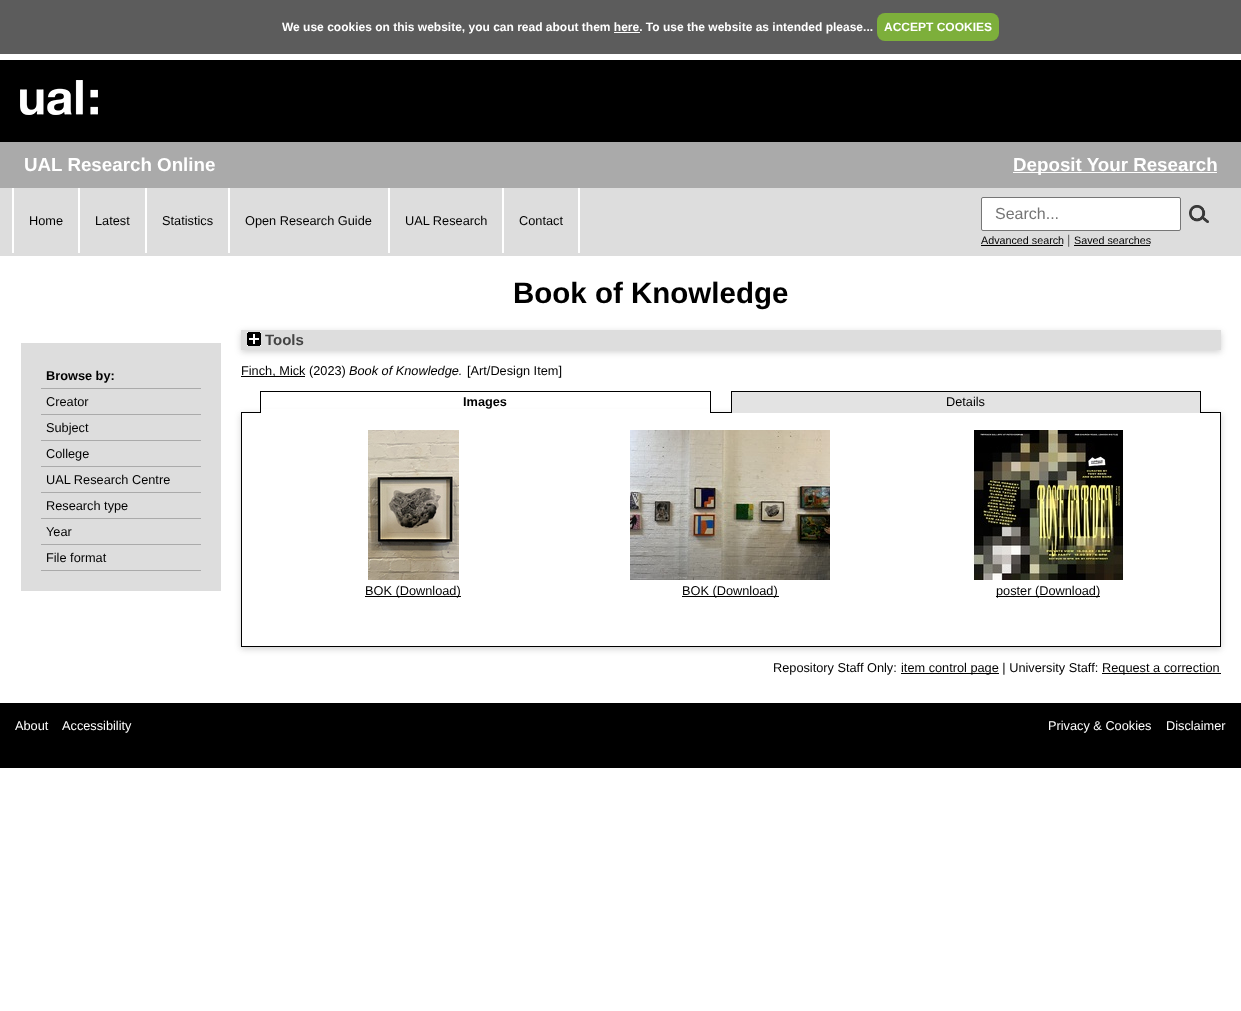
<!DOCTYPE html>
<meta charset="utf-8">
<style>body { margin: 0 } canvas { display: block }</style>
<canvas id="canvas" width="1241" height="1011"></canvas>
<img id="img1" src="images/1.png" hidden>
<img id="img2" src="images/2.png" hidden>
<img id="img3" src="images/3.png" hidden>
<img id="img4" src="images/4.png" hidden>
<img id="img5" src="images/5.png" hidden>
<img id="img6" src="images/6.png" hidden>
<script>
window.onload = function () {
    const canvas = document.getElementById('canvas');
    const context = canvas.getContext('2d');
    context.miterLimit = 4;
    context.fontKerning = 'normal';

    context.fillStyle = 'rgb(255, 255, 255)';
    context.fillRect(0, 0, 1241, 1011);
    context.fillStyle = 'rgb(92, 92, 92)';
    context.fillRect(0, 0, 1241, 54);
    context.fillStyle = 'rgb(125, 175, 59)';
    context.beginPath();
    context.roundRect(877, 13, 122, 28, 8);
    context.fill();
    context.fillStyle = 'rgb(255, 255, 255)';
    context.fillRect(614, 32, 26, 1);
    context.fillStyle = 'rgb(0, 0, 0)';
    context.fillRect(0, 60, 1241, 82);
    context.drawImage(document.getElementById('img1'), 20, 80, 78, 35);
    context.fillStyle = 'rgb(170, 170, 170)';
    context.fillRect(0, 142, 1241, 46);
    context.fillStyle = 'rgb(255, 255, 255)';
    context.fillRect(1013, 172, 204, 1);
    context.fillStyle = 'rgb(221, 221, 221)';
    context.fillRect(0, 188, 1241, 68);
    context.fillStyle = 'rgb(255, 255, 255)';
    context.fillRect(12, 188, 2, 65);
    context.fillRect(78, 188, 2, 65);
    context.fillRect(145, 188, 2, 65);
    context.fillRect(228, 188, 2, 65);
    context.fillRect(388, 188, 2, 65);
    context.fillRect(578, 188, 2, 65);
    context.fillRect(502, 188, 2, 65);
    context.beginPath();
    context.roundRect(981.5, 197.5, 199, 33, 1.5);
    context.fill();
    context.strokeStyle = 'rgb(118, 118, 118)';
    context.stroke();
    context.drawImage(document.getElementById('img2'), 1189, 205, 20, 18);
    context.fillStyle = 'rgb(0, 0, 0)';
    context.fillRect(981, 245, 82, 1);
    context.fillRect(1074, 245, 76, 1);
    context.fillStyle = 'rgb(221, 221, 221)';
    context.fillRect(21, 343, 200, 248);
    context.fillStyle = 'rgb(170, 170, 170)';
    context.fillRect(41, 388, 160, 1);
    context.fillRect(41, 414, 160, 1);
    context.fillRect(41, 440, 160, 1);
    context.fillRect(41, 466, 160, 1);
    context.fillRect(41, 492, 160, 1);
    context.fillRect(41, 518, 160, 1);
    context.fillRect(41, 544, 160, 1);
    context.fillRect(41, 570, 160, 1);
    context.fillStyle = 'rgba(100, 100, 100, 0.3)';
    context.filter = 'blur(3px)';
    context.beginPath();
    context.rect(241, 332, 980, 20);
    context.fill();
    context.filter = 'none';
    context.fillStyle = 'rgb(221, 221, 221)';
    context.fillRect(241, 330, 980, 20);
    context.drawImage(document.getElementById('img3'), 247, 332, 14, 14);
    context.fillStyle = 'rgb(0, 0, 0)';
    context.fillRect(241, 376, 64, 1);
    context.save();
    context.beginPath();
    context.moveTo(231, 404);
    context.lineTo(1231, 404);
    context.lineTo(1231, 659);
    context.lineTo(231, 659);
    context.closePath();
    context.moveTo(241, 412);
    context.lineTo(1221, 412);
    context.lineTo(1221, 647);
    context.lineTo(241, 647);
    context.closePath();
    context.clip('evenodd');
    context.fillStyle = 'rgba(100, 100, 100, 0.3)';
    context.filter = 'blur(3px)';
    context.beginPath();
    context.rect(241, 414, 980, 235);
    context.fill();
    context.filter = 'none';
    context.restore();
    context.fillRect(1220, 412, 1, 235);
    context.fillRect(241, 646, 980, 1);
    context.fillRect(241, 412, 1, 235);
    context.fillRect(241, 412, 490, 1);
    context.fillStyle = 'rgb(255, 255, 255)';
    context.fillRect(261, 409, 449, 4);
    context.fillStyle = 'rgb(0, 0, 0)';
    context.fillRect(260, 391, 451, 1);
    context.fillRect(710, 391, 1, 22);
    context.fillRect(260, 391, 1, 22);
    context.fillRect(1201, 412, 20, 1);
    context.fillStyle = 'rgb(227, 227, 227)';
    context.fillRect(732, 392, 468, 21);
    context.fillStyle = 'rgb(0, 0, 0)';
    context.fillRect(731, 391, 470, 1);
    context.fillRect(1200, 391, 1, 22);
    context.fillRect(731, 391, 1, 22);
    context.drawImage(document.getElementById('img4'), 368, 430, 91, 150);
    context.fillRect(365, 596, 96, 1);
    context.drawImage(document.getElementById('img5'), 630, 430, 200, 150);
    context.fillRect(682, 596, 97, 1);
    context.drawImage(document.getElementById('img6'), 972, 430, 152, 150);
    context.fillRect(996, 596, 104, 1);
    context.fillRect(901, 673, 98, 1);
    context.fillRect(1102, 673, 119, 1);
    context.fillRect(0, 703, 1241, 65);
    context.font = 'bold 12px Liberation Sans';
    context.fillStyle = 'rgb(255, 255, 255)';
    context.fillText('We use cookies on this website, you can read about them here. To use the website as intended please...', 282, 31);
    context.fillText('ACCEPT COOKIES', 884, 31);
    context.font = 'bold 18.75px Liberation Sans';
    context.fillText('UAL Research Online', 24, 171);
    context.fillText('Deposit Your Research', 1013, 171);
    context.font = '12.75px Liberation Sans';
    context.fillStyle = 'rgb(0, 0, 0)';
    context.fillText('Home', 29, 225);
    context.fillText('Latest', 95, 225);
    context.fillText('Statistics', 162, 225);
    context.fillText('Open Research Guide', 245, 225);
    context.fillText('UAL Research', 405, 225);
    context.fillText('Contact', 519, 225);
    context.font = '16px Liberation Sans';
    context.fillStyle = 'rgb(117, 117, 117)';
    context.fillText('Search...', 995, 219);
    context.font = '10.75px Liberation Sans';
    context.fillStyle = 'rgb(0, 0, 0)';
    context.fillText('Advanced search', 981, 244);
    context.font = '12.75px Liberation Sans';
    context.fillStyle = 'rgb(96, 96, 96)';
    context.fillText('|', 1067, 244);
    context.font = '10.75px Liberation Sans';
    context.fillStyle = 'rgb(0, 0, 0)';
    context.fillText('Saved searches', 1074, 244);
    context.font = 'bold 29.5px Liberation Sans';
    context.fillText('Book of Knowledge', 513, 303);
    context.font = 'bold 12.75px Liberation Sans';
    context.fillText('Browse by:', 46, 380);
    context.font = '12.75px Liberation Sans';
    context.fillText('Creator', 46, 406);
    context.fillText('Subject', 46, 432);
    context.fillText('College', 46, 458);
    context.fillText('UAL Research Centre', 46, 484);
    context.fillText('Research type', 46, 510);
    context.fillText('Year', 46, 536);
    context.fillText('File format', 46, 562);
    context.font = 'bold 15px Liberation Sans';
    context.fillStyle = 'rgb(68, 68, 68)';
    context.fillText('Tools', 265, 345);
    context.font = '12.75px Liberation Sans';
    context.fillStyle = 'rgb(0, 0, 0)';
    context.fillText('Finch, Mick (2023)', 241, 375);
    context.font = 'italic 12.75px Liberation Sans';
    context.fillText('Book of Knowledge.', 349, 375);
    context.font = '12.75px Liberation Sans';
    context.fillText('[Art/Design Item]', 467, 375);
    context.font = 'bold 12.75px Liberation Sans';
    context.fillText('Images', 463, 406);
    context.font = '12.75px Liberation Sans';
    context.fillText('Details', 946, 406);
    context.fillText('BOK (Download)', 365, 595);
    context.fillText('BOK (Download)', 682, 595);
    context.fillText('poster (Download)', 996, 595);
    context.fillText('Repository Staff Only:', 773, 672);
    context.fillText('item control page | University Staff:', 901, 672);
    context.fillText('Request a correction', 1102, 672);
    context.fillStyle = 'rgb(255, 255, 255)';
    context.fillText('About', 15, 730);
    context.fillText('Accessibility', 62, 730);
    context.fillText('Privacy & Cookies', 1048, 730);
    context.fillText('Disclaimer', 1166, 730);
};
</script>
